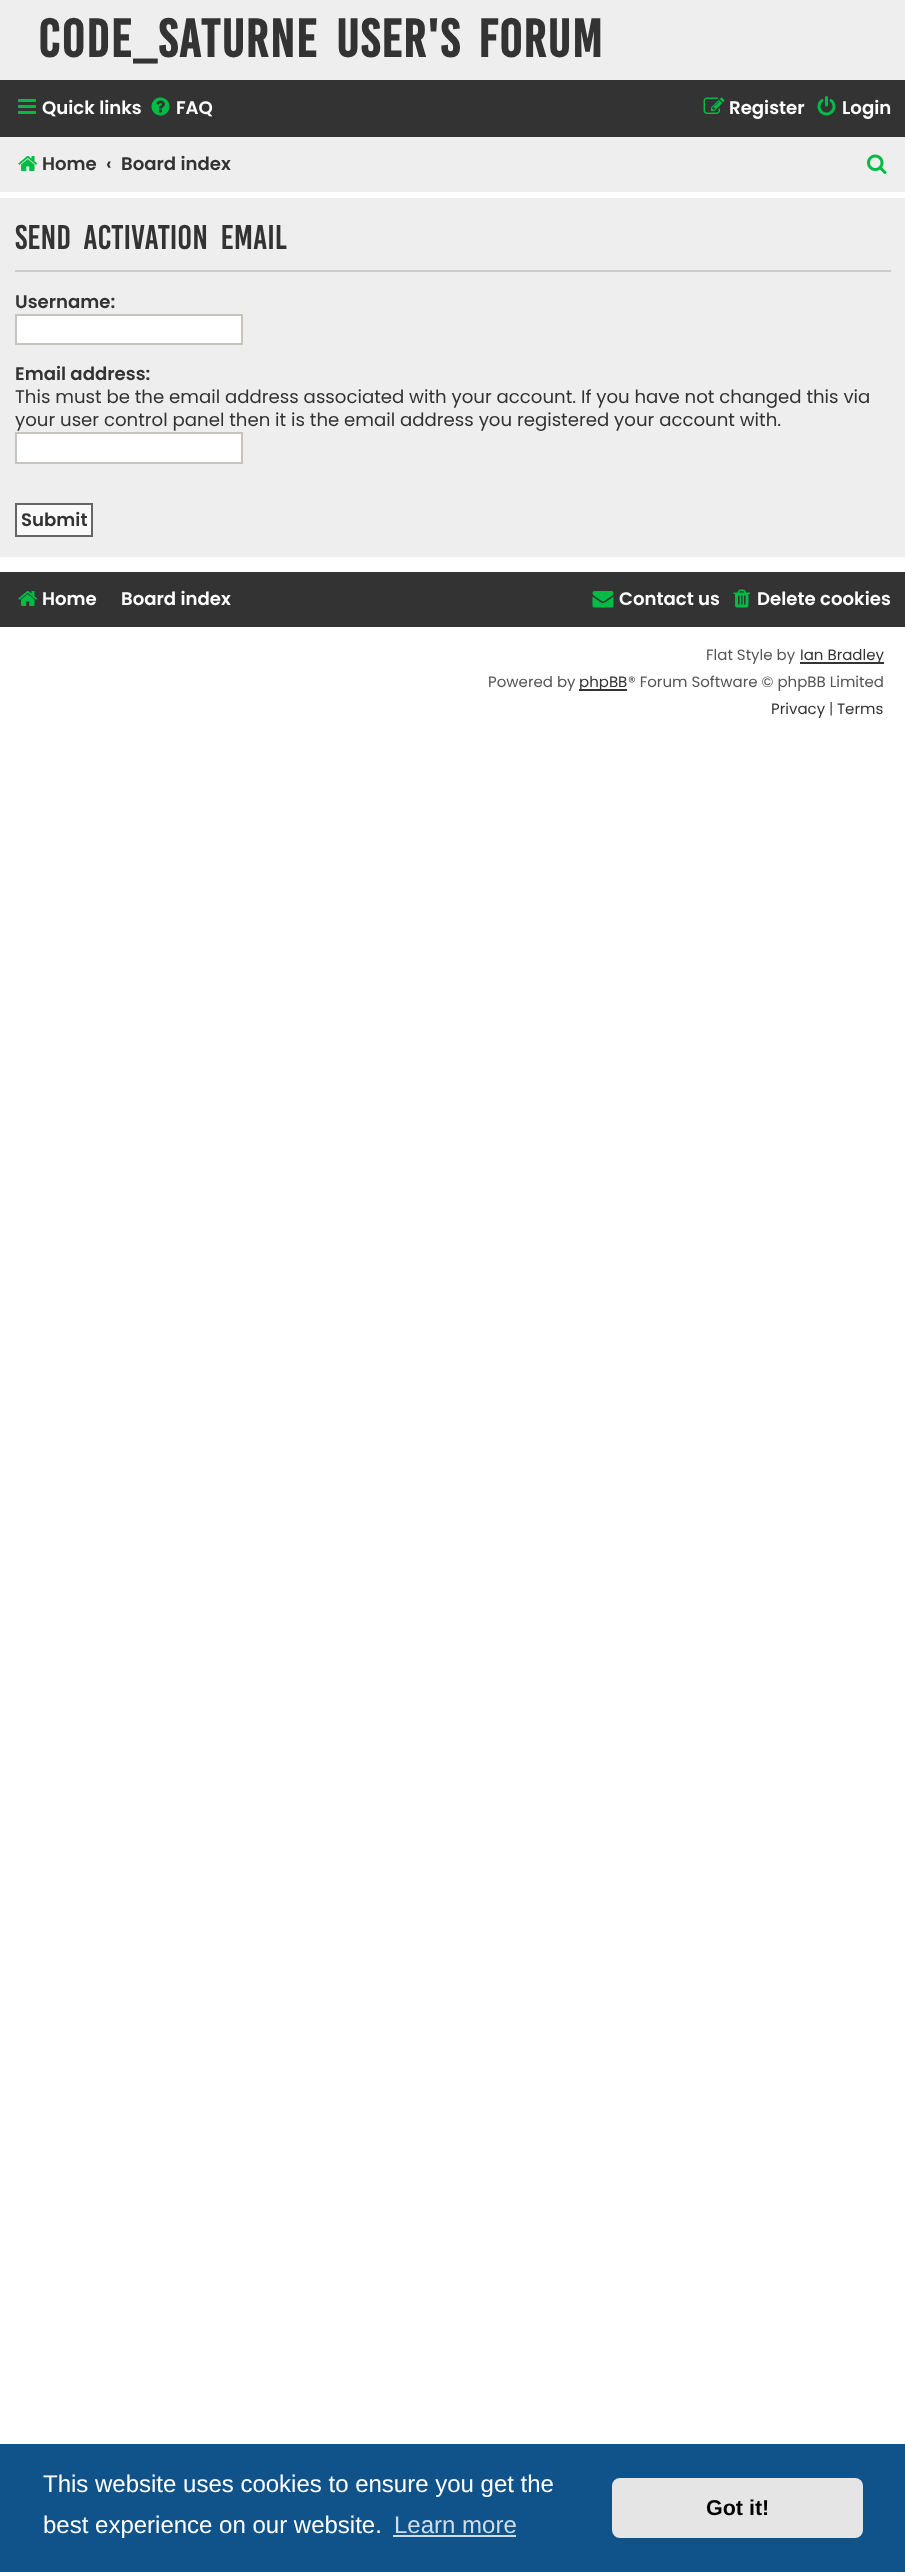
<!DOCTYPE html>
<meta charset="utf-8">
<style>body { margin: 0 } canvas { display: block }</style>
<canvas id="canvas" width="905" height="2572"></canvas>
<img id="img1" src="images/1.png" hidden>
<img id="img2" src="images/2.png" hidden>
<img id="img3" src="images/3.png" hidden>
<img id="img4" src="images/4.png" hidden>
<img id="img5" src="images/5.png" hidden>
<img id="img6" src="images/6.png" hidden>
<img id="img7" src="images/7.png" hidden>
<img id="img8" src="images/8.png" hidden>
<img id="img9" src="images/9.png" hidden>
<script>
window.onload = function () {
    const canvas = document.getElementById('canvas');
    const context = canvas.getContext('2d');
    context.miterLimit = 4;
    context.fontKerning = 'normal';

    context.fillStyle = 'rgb(255, 255, 255)';
    context.fillRect(0, 0, 905, 2572);
    context.fillStyle = 'rgb(238, 238, 238)';
    context.fillRect(0, 0, 905, 80);
    context.fillStyle = 'rgb(51, 51, 51)';
    context.fillRect(0, 80, 905, 57);
    context.drawImage(document.getElementById('img1'), 18, 99, 18, 15);
    context.drawImage(document.getElementById('img2'), 151, 97, 19, 19);
    context.drawImage(document.getElementById('img3'), 703, 97, 22, 17);
    context.drawImage(document.getElementById('img4'), 817, 96, 19, 20);
    context.fillStyle = 'rgb(238, 238, 238)';
    context.fillRect(0, 137, 905, 55);
    context.drawImage(document.getElementById('img5'), 18, 156, 20, 15);
    context.drawImage(document.getElementById('img6'), 867, 154, 20, 20);
    context.fillRect(0, 198, 905, 359);
    context.fillStyle = 'rgb(204, 204, 204)';
    context.fillRect(15, 270, 876, 2);
    context.fillStyle = 'rgb(255, 255, 255)';
    context.beginPath();
    context.rect(16, 315, 226, 29);
    context.fill();
    context.strokeStyle = 'rgb(199, 195, 191)';
    context.lineWidth = 2;
    context.stroke();
    context.beginPath();
    context.rect(16, 433, 226, 30);
    context.fill();
    context.stroke();
    context.fillStyle = 'rgb(250, 250, 250)';
    context.beginPath();
    context.rect(16, 504, 76, 32);
    context.fill();
    context.strokeStyle = 'rgb(102, 102, 102)';
    context.stroke();
    context.fillStyle = 'rgb(51, 51, 51)';
    context.fillRect(0, 572, 905, 55);
    context.drawImage(document.getElementById('img7'), 18, 591, 20, 15);
    context.drawImage(document.getElementById('img8'), 592, 591, 22, 17);
    context.drawImage(document.getElementById('img9'), 733, 589, 17, 19);
    context.fillRect(800, 662, 84, 2);
    context.fillRect(579, 689, 48, 2);
    context.fillStyle = 'rgb(15, 83, 138)';
    context.fillRect(0, 2444, 905, 128);
    context.fillStyle = 'rgb(207, 221, 232)';
    context.fillRect(393, 2535, 123, 2);
    context.fillStyle = 'rgb(229, 229, 229)';
    context.beginPath();
    context.roundRect(612, 2478, 251, 60, 8);
    context.fill();
    context.letterSpacing = '1.5px';
    context.wordSpacing = '6px';
    context.font = 'bold 41.25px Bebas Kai';
    context.fillStyle = 'rgb(51, 51, 51)';
    context.fillText('code_saturne User\'s Forum', 38, 57);
    context.letterSpacing = '0px';
    context.wordSpacing = '0px';
    context.font = '600 18.15px Poppins';
    context.fillStyle = 'rgb(255, 255, 255)';
    context.fillText('Quick links', 42, 114);
    context.fillText('FAQ', 176, 114);
    context.fillText('Register', 729, 114);
    context.fillText('Login', 842, 114);
    context.fillStyle = 'rgb(51, 51, 51)';
    context.fillText('Home', 42, 170);
    context.fillText('‹', 106, 170);
    context.fillText('Board index', 121, 170);
    context.wordSpacing = '6px';
    context.font = '26.4px Bebas Kai';
    context.fillText('Send activation email', 15, 249);
    context.wordSpacing = '0px';
    context.font = '600 18.15px Poppins';
    context.fillText('Username:', 15, 308);
    context.fillText('Email address:', 15, 380);
    context.font = '18.15px Poppins';
    context.fillText('This must be the email address associated with your account. If you have not changed this via', 15, 403);
    context.fillText('your user control panel then it is the email address you registered your account with.', 15, 426);
    context.font = '600 18.15px Poppins';
    context.fillText('Submit', 21, 526);
    context.fillStyle = 'rgb(255, 255, 255)';
    context.fillText('Home', 42, 605);
    context.fillText('Board index', 121, 605);
    context.fillText('Contact us', 619, 605);
    context.fillText('Delete cookies', 757, 605);
    context.font = '15px Poppins';
    context.fillStyle = 'rgb(85, 85, 85)';
    context.fillText('Flat Style by', 706, 660);
    context.fillStyle = 'rgb(51, 51, 51)';
    context.fillText('Ian Bradley', 800, 660);
    context.fillStyle = 'rgb(85, 85, 85)';
    context.fillText('Powered by', 488, 687);
    context.fillStyle = 'rgb(51, 51, 51)';
    context.fillText('phpBB', 579, 687);
    context.fillStyle = 'rgb(85, 85, 85)';
    context.fillText('® Forum Software © phpBB Limited', 628, 687);
    context.fillStyle = 'rgb(51, 51, 51)';
    context.fillText('Privacy', 771, 714);
    context.fillStyle = 'rgb(85, 85, 85)';
    context.fillText('|', 829, 714);
    context.fillStyle = 'rgb(51, 51, 51)';
    context.fillText('Terms', 837, 714);
    context.font = '24px Liberation Sans';
    context.fillStyle = 'rgb(255, 255, 255)';
    context.fillText('This website uses cookies to ensure you get the', 43, 2492);
    context.fillText('best experience on our website.', 43, 2533);
    context.fillStyle = 'rgb(207, 221, 232)';
    context.fillText('Learn more', 394, 2533);
    context.font = 'bold 21.5px Liberation Sans';
    context.fillStyle = 'rgb(0, 0, 0)';
    context.fillText('Got it!', 706, 2515);
};
</script>
